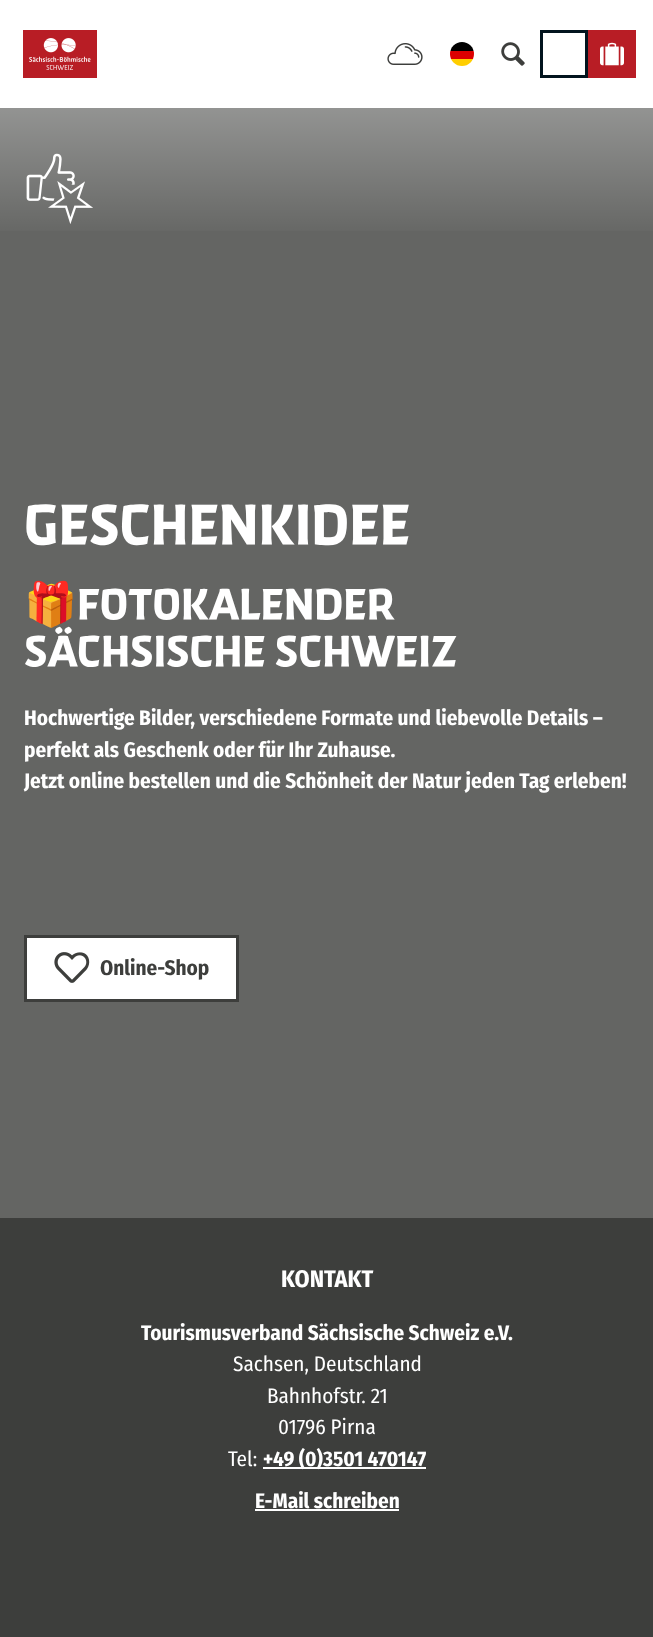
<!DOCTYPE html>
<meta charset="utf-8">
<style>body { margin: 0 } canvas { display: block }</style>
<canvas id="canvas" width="653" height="1637"></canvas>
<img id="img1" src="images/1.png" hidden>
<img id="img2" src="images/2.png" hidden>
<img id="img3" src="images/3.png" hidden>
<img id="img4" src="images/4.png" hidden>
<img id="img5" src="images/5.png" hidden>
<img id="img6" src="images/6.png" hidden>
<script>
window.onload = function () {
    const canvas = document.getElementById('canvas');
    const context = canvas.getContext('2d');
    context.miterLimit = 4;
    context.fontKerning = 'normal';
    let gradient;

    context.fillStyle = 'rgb(100, 101, 99)';
    context.fillRect(0, 0, 653, 1637);
    context.fillStyle = 'rgb(255, 255, 255)';
    context.fillRect(0, 0, 653, 108);
    context.drawImage(document.getElementById('img1'), 23, 30, 74, 48);
    context.drawImage(document.getElementById('img2'), 387, 43, 36, 22);
    context.save();
    context.beginPath();
    context.roundRect(450, 42, 24, 24, 12);
    context.clip();
    context.fillStyle = 'rgb(0, 0, 0)';
    context.fillRect(450, 42, 24, 9);
    context.fillStyle = 'rgb(221, 0, 0)';
    context.fillRect(450, 51, 24, 8);
    context.fillStyle = 'rgb(255, 206, 0)';
    context.fillRect(450, 59, 24, 7);
    context.restore();
    context.drawImage(document.getElementById('img3'), 501, 42, 24, 24);
    context.strokeStyle = 'rgb(2, 20, 30)';
    context.lineWidth = 3;
    context.strokeRect(541.5, 31.5, 45, 45);
    context.fillStyle = 'rgb(184, 29, 37)';
    context.fillRect(588, 30, 48, 48);
    context.drawImage(document.getElementById('img4'), 600, 42, 24, 24);
    context.drawImage(document.getElementById('img5'), 26, 153, 67, 71);
    gradient = context.createLinearGradient(327, 240, 327, 0);
    gradient.addColorStop(0, 'rgba(255, 255, 255, 0)');
    gradient.addColorStop(1, 'rgba(255, 255, 255, 0.55)');
    context.fillStyle = gradient;
    context.fillRect(0, 108, 653, 123);
    context.fillStyle = 'rgb(255, 255, 255)';
    context.beginPath();
    context.rect(25.5, 936.5, 212, 64);
    context.fill();
    context.strokeStyle = 'rgb(61, 62, 60)';
    context.stroke();
    context.drawImage(document.getElementById('img6'), 54, 952, 36, 31);
    context.fillStyle = 'rgb(61, 62, 60)';
    context.fillRect(0, 1218, 653, 419);
    context.fillStyle = 'rgb(255, 255, 255)';
    context.fillRect(263, 1467, 163, 2);
    context.fillRect(255, 1509, 144, 2);
    context.font = 'bold 55.75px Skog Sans';
    context.fillText('GESCHENKIDEE', 24, 544);
    context.font = 'bold 42.75px Noto Color Emoji';
    context.fillText('🎁', 24, 619);
    context.font = 'bold 42.75px Skog Sans';
    context.fillText('FOTOKALENDER', 77, 619);
    context.fillText('SÄCHSISCHE SCHWEIZ', 24, 666);
    context.font = 'bold 21.1px Fira Sans Condensed';
    context.fillText('Hochwertige Bilder, verschiedene Formate und liebevolle Details –', 24, 725);
    context.fillText('perfekt als Geschenk oder für Ihr Zuhause.', 24, 757);
    context.fillText('Jetzt online bestellen und die Schönheit der Natur jeden Tag erleben!', 24, 788);
    context.fillStyle = 'rgb(61, 62, 60)';
    context.fillText('Online-Shop', 100, 975);
    context.font = 'bold 24px Fira Sans Condensed';
    context.fillStyle = 'rgb(255, 255, 255)';
    context.fillText('KONTAKT', 281, 1287);
    context.font = 'bold 21.1px Fira Sans Condensed';
    context.fillText('Tourismusverband Sächsische Schweiz e.V.', 141, 1340);
    context.font = '21.1px Fira Sans Condensed';
    context.fillText('Sachsen, Deutschland', 233, 1371);
    context.fillText('Bahnhofstr. 21', 267, 1403);
    context.fillText('01796 Pirna', 278, 1434);
    context.fillText('Tel:', 228, 1466);
    context.font = 'bold 21.1px Fira Sans Condensed';
    context.fillText('+49 (0)3501 470147', 263, 1466);
    context.fillText('E-Mail schreiben', 255, 1508);
};
</script>
